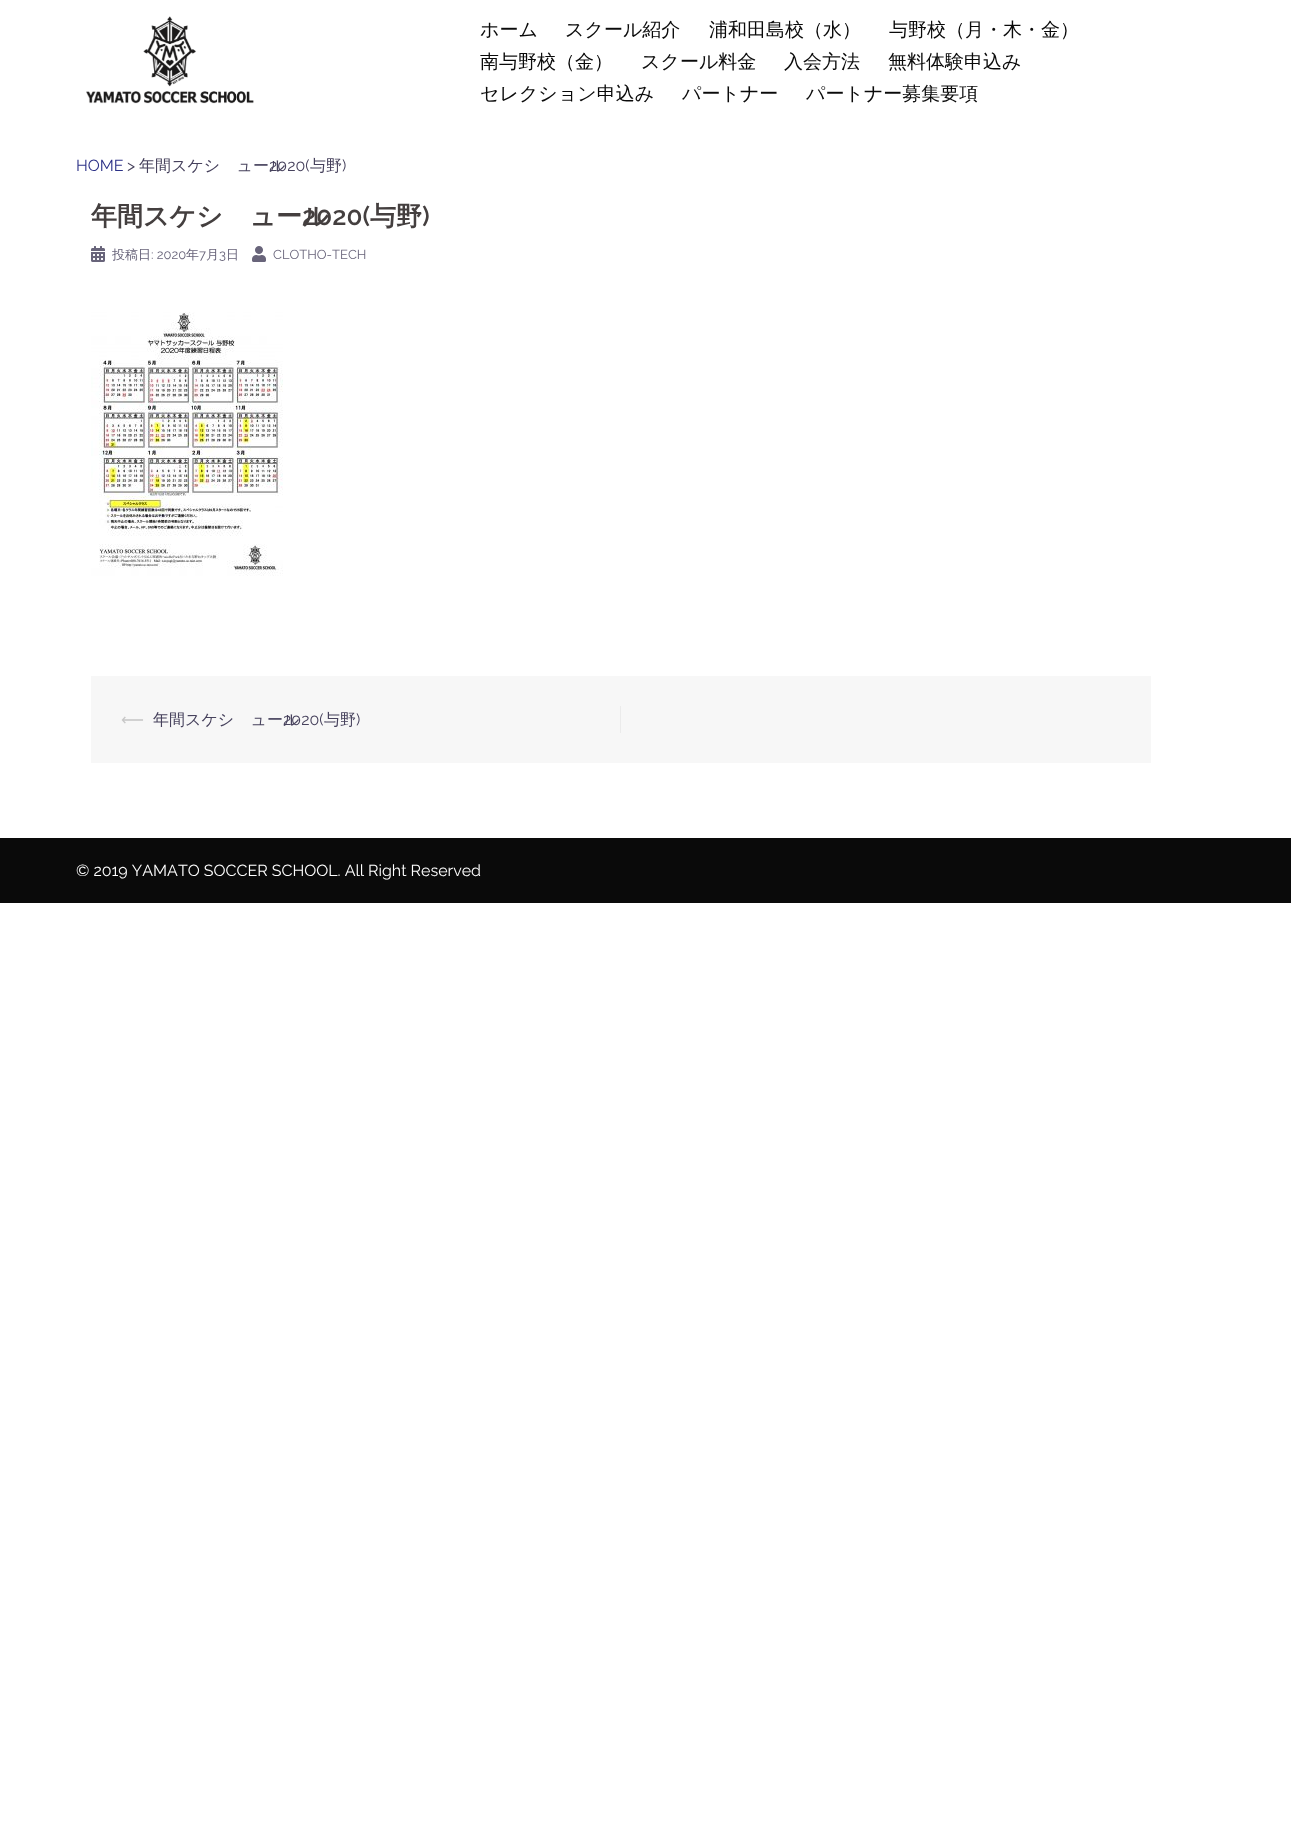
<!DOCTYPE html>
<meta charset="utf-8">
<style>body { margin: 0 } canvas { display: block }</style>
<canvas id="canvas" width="1291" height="1822"></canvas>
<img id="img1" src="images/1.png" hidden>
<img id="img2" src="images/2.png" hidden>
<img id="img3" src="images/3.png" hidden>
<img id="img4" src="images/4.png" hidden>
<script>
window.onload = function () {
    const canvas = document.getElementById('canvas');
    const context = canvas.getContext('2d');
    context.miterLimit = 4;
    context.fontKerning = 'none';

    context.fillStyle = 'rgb(255, 255, 255)';
    context.fillRect(0, 0, 1291, 1822);
    context.drawImage(document.getElementById('img1'), 86, 16, 168, 88);
    context.drawImage(document.getElementById('img2'), 91, 246, 14, 16);
    context.drawImage(document.getElementById('img3'), 252, 246, 14, 16);
    context.drawImage(document.getElementById('img4'), 91, 312, 192, 264);
    context.fillStyle = 'rgb(247, 247, 247)';
    context.fillRect(91, 676, 1060, 87);
    context.fillStyle = 'rgb(235, 235, 235)';
    context.fillRect(620, 706, 1, 27);
    context.fillStyle = 'rgb(10, 10, 10)';
    context.fillRect(0, 838, 1291, 65);
    context.font = '500 19px WenQuanYi Zen Hei';
    context.fillText('ホーム', 480, 36);
    context.fillText('スクール紹介', 565, 36);
    context.fillText('浦和田島校（水）', 709, 36);
    context.fillText('与野校（月・木・金）', 889, 36);
    context.fillText('南与野校（金）', 480, 68);
    context.fillText('スクール料金', 641, 68);
    context.fillText('入会方法', 784, 68);
    context.fillText('無料体験申込み', 888, 68);
    context.fillText('セレクション申込み', 480, 100);
    context.fillText('パートナー', 682, 100);
    context.fillText('パートナー募集要項', 806, 100);
    context.font = '16px Raleway';
    context.fillStyle = 'rgb(44, 49, 135)';
    context.fillText('HOME', 76, 171);
    context.fillStyle = 'rgb(71, 66, 93)';
    context.fillText('>', 127, 171);
    context.font = '500 16px WenQuanYi Zen Hei';
    context.fillText('年間スケジュール', 139, 171);
    context.font = '16px Raleway';
    context.fillText('2020(', 269, 171);
    context.font = '500 16px WenQuanYi Zen Hei';
    context.fillText('与野', 310, 171);
    context.font = '16px Raleway';
    context.fillText(')', 342, 171);
    context.font = 'bold 26px WenQuanYi Zen Hei';
    context.fillStyle = 'rgb(68, 63, 63)';
    context.fillText('年間スケジュール', 91, 225);
    context.font = '600 26px Raleway';
    context.fillText('2020(', 302, 225);
    context.font = 'bold 26px WenQuanYi Zen Hei';
    context.fillText('与野', 370, 225);
    context.font = '600 26px Raleway';
    context.fillText(')', 422, 225);
    context.font = '500 13px WenQuanYi Zen Hei';
    context.fillStyle = 'rgb(104, 100, 122)';
    context.fillText('投稿日', 112, 259);
    context.font = '13px Raleway';
    context.fillText(': 2020', 151, 259);
    context.font = '500 13px WenQuanYi Zen Hei';
    context.fillText('年', 186, 259);
    context.font = '13px Raleway';
    context.fillText('7', 199, 259);
    context.font = '500 13px WenQuanYi Zen Hei';
    context.fillText('月', 206, 259);
    context.font = '13px Raleway';
    context.fillText('3', 219, 259);
    context.font = '500 13px WenQuanYi Zen Hei';
    context.fillText('日', 226, 259);
    context.font = '13px Raleway';
    context.fillText('CLOTHO-TECH', 273, 259);
    context.font = '16px DejaVu Sans';
    context.fillStyle = 'rgb(199, 199, 199)';
    context.fillText('⟵', 121, 725);
    context.font = '500 16px WenQuanYi Zen Hei';
    context.fillStyle = 'rgb(71, 66, 93)';
    context.fillText('年間スケジュール', 153, 725);
    context.font = '16px Raleway';
    context.fillText('2020(', 283, 725);
    context.font = '500 16px WenQuanYi Zen Hei';
    context.fillText('与野', 324, 725);
    context.font = '16px Raleway';
    context.fillText(')', 356, 725);
    context.fillStyle = 'rgb(255, 255, 255)';
    context.fillText('© 2019 YAMATO SOCCER SCHOOL. All', 76, 876);
    context.fillText('Right Reserved', 368, 876);
};
</script>
